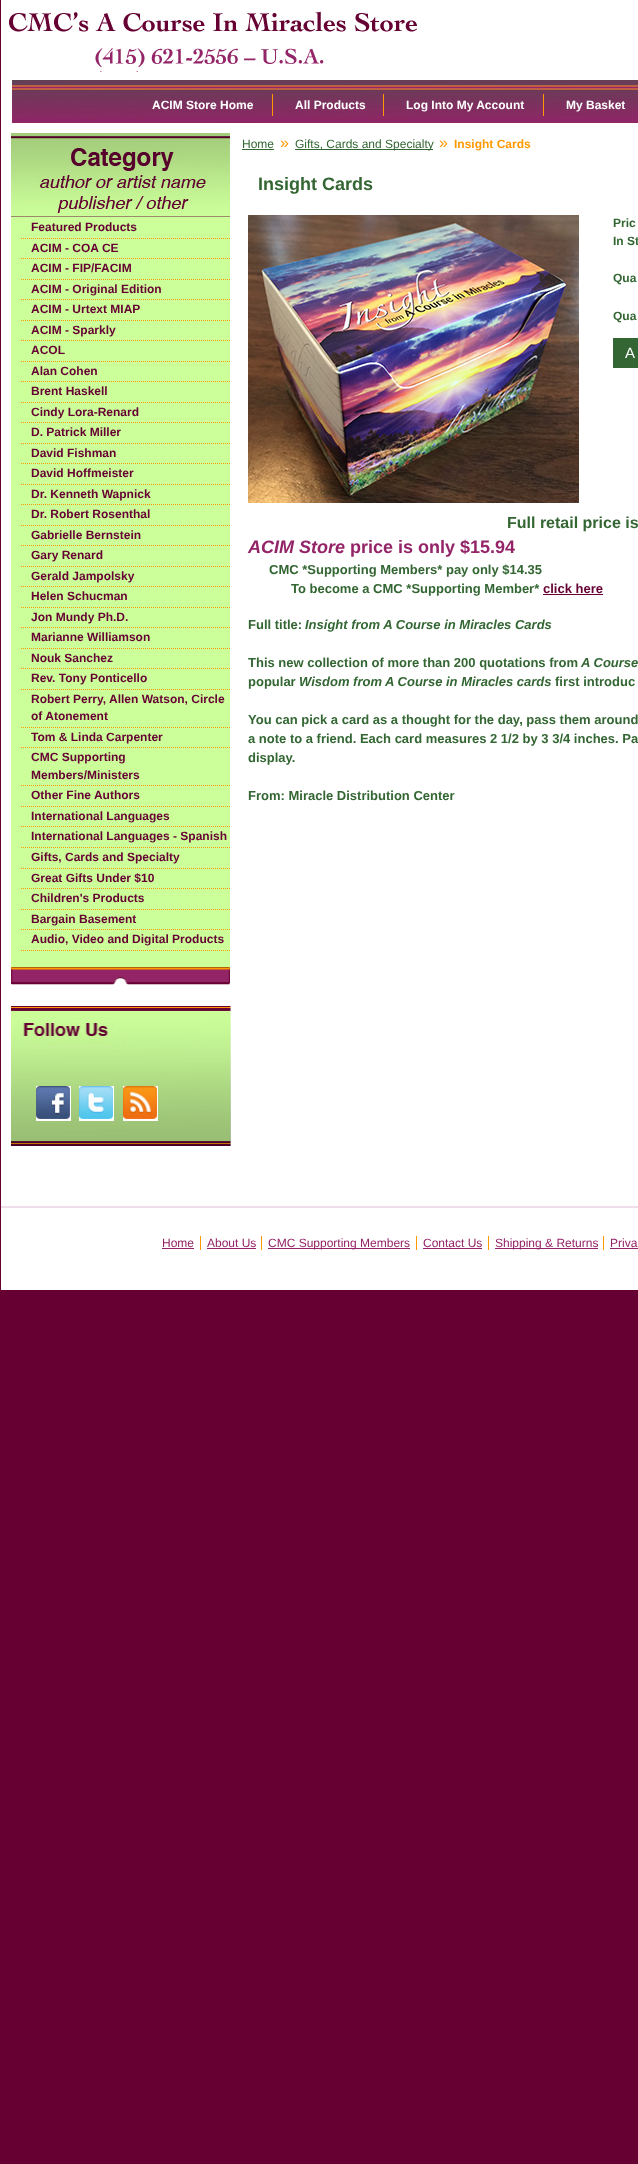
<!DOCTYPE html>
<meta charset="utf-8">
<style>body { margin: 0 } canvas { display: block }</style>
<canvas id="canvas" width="638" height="2164"></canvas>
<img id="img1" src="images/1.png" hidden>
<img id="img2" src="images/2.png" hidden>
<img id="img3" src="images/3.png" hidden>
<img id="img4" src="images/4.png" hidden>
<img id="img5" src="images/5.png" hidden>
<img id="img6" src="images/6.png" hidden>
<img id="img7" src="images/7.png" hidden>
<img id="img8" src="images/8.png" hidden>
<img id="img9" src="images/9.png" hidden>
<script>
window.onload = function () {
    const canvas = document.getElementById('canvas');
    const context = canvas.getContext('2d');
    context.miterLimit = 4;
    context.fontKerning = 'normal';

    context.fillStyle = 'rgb(102, 0, 51)';
    context.fillRect(0, 0, 638, 2164);
    context.fillStyle = 'rgb(255, 255, 255)';
    context.fillRect(1, 0, 637, 1290);
    context.drawImage(document.getElementById('img1'), 9, 11, 408, 64);
    context.drawImage(document.getElementById('img2'), 12, 80, 626, 43);
    context.fillStyle = 'rgb(255, 153, 0)';
    context.fillRect(272, 94, 1, 22);
    context.fillRect(383, 94, 1, 22);
    context.fillRect(543, 94, 1, 22);
    context.drawImage(document.getElementById('img3'), 11, 133, 219, 85);
    context.fillStyle = 'rgb(204, 255, 153)';
    context.fillRect(11, 218, 219, 749);
    context.drawImage(document.getElementById('img4'), 11, 967, 219, 19);
    context.beginPath();
    context.moveTo(21, 238.5);
    context.lineTo(230, 238.5);
    context.strokeStyle = 'rgb(255, 153, 0)';
    context.setLineDash([1, 1]);
    context.stroke();
    context.beginPath();
    context.moveTo(21, 258.5);
    context.lineTo(230, 258.5);
    context.stroke();
    context.beginPath();
    context.moveTo(21, 279.5);
    context.lineTo(230, 279.5);
    context.stroke();
    context.beginPath();
    context.moveTo(21, 299.5);
    context.lineTo(230, 299.5);
    context.stroke();
    context.beginPath();
    context.moveTo(21, 320.5);
    context.lineTo(230, 320.5);
    context.stroke();
    context.beginPath();
    context.moveTo(21, 340.5);
    context.lineTo(230, 340.5);
    context.stroke();
    context.beginPath();
    context.moveTo(21, 361.5);
    context.lineTo(230, 361.5);
    context.stroke();
    context.beginPath();
    context.moveTo(21, 381.5);
    context.lineTo(230, 381.5);
    context.stroke();
    context.beginPath();
    context.moveTo(21, 402.5);
    context.lineTo(230, 402.5);
    context.stroke();
    context.beginPath();
    context.moveTo(21, 422.5);
    context.lineTo(230, 422.5);
    context.stroke();
    context.beginPath();
    context.moveTo(21, 443.5);
    context.lineTo(230, 443.5);
    context.stroke();
    context.beginPath();
    context.moveTo(21, 463.5);
    context.lineTo(230, 463.5);
    context.stroke();
    context.beginPath();
    context.moveTo(21, 484.5);
    context.lineTo(230, 484.5);
    context.stroke();
    context.beginPath();
    context.moveTo(21, 504.5);
    context.lineTo(230, 504.5);
    context.stroke();
    context.beginPath();
    context.moveTo(21, 525.5);
    context.lineTo(230, 525.5);
    context.stroke();
    context.beginPath();
    context.moveTo(21, 545.5);
    context.lineTo(230, 545.5);
    context.stroke();
    context.beginPath();
    context.moveTo(21, 566.5);
    context.lineTo(230, 566.5);
    context.stroke();
    context.beginPath();
    context.moveTo(21, 586.5);
    context.lineTo(230, 586.5);
    context.stroke();
    context.beginPath();
    context.moveTo(21, 607.5);
    context.lineTo(230, 607.5);
    context.stroke();
    context.beginPath();
    context.moveTo(21, 627.5);
    context.lineTo(230, 627.5);
    context.stroke();
    context.beginPath();
    context.moveTo(21, 648.5);
    context.lineTo(230, 648.5);
    context.stroke();
    context.beginPath();
    context.moveTo(21, 668.5);
    context.lineTo(230, 668.5);
    context.stroke();
    context.beginPath();
    context.moveTo(21, 689.5);
    context.lineTo(230, 689.5);
    context.stroke();
    context.beginPath();
    context.moveTo(21, 727.5);
    context.lineTo(230, 727.5);
    context.stroke();
    context.beginPath();
    context.moveTo(21, 747.5);
    context.lineTo(230, 747.5);
    context.stroke();
    context.beginPath();
    context.moveTo(21, 785.5);
    context.lineTo(230, 785.5);
    context.stroke();
    context.beginPath();
    context.moveTo(21, 806.5);
    context.lineTo(230, 806.5);
    context.stroke();
    context.beginPath();
    context.moveTo(21, 826.5);
    context.lineTo(230, 826.5);
    context.stroke();
    context.beginPath();
    context.moveTo(21, 847.5);
    context.lineTo(230, 847.5);
    context.stroke();
    context.beginPath();
    context.moveTo(21, 868.5);
    context.lineTo(230, 868.5);
    context.stroke();
    context.beginPath();
    context.moveTo(21, 888.5);
    context.lineTo(230, 888.5);
    context.stroke();
    context.beginPath();
    context.moveTo(21, 909.5);
    context.lineTo(230, 909.5);
    context.stroke();
    context.beginPath();
    context.moveTo(21, 929.5);
    context.lineTo(230, 929.5);
    context.stroke();
    context.beginPath();
    context.moveTo(21, 950.5);
    context.lineTo(230, 950.5);
    context.stroke();
    context.drawImage(document.getElementById('img5'), 11, 1006, 220, 140);
    context.drawImage(document.getElementById('img6'), 36, 1086, 35, 35);
    context.drawImage(document.getElementById('img7'), 79, 1086, 35, 35);
    context.drawImage(document.getElementById('img8'), 123, 1086, 35, 35);
    context.fillStyle = 'rgb(51, 102, 51)';
    context.fillRect(242, 149, 32, 1);
    context.fillRect(295, 149, 138, 1);
    context.drawImage(document.getElementById('img9'), 248, 215, 331, 288);
    context.fillRect(613, 338, 25, 30);
    context.fillStyle = 'rgb(102, 0, 51)';
    context.fillRect(543, 594, 60, 1);
    context.fillStyle = 'rgb(239, 222, 234)';
    context.fillRect(1, 1206, 637, 2);
    context.fillStyle = 'rgb(147, 36, 103)';
    context.fillRect(162, 1248, 32, 1);
    context.fillStyle = 'rgb(255, 153, 0)';
    context.fillRect(200, 1236, 1, 14);
    context.fillStyle = 'rgb(147, 36, 103)';
    context.fillRect(207, 1248, 49, 1);
    context.fillStyle = 'rgb(255, 153, 0)';
    context.fillRect(261, 1236, 1, 14);
    context.fillStyle = 'rgb(147, 36, 103)';
    context.fillRect(268, 1248, 142, 1);
    context.fillStyle = 'rgb(255, 153, 0)';
    context.fillRect(416, 1236, 1, 14);
    context.fillStyle = 'rgb(147, 36, 103)';
    context.fillRect(423, 1248, 59, 1);
    context.fillStyle = 'rgb(255, 153, 0)';
    context.fillRect(488, 1236, 1, 14);
    context.fillStyle = 'rgb(147, 36, 103)';
    context.fillRect(495, 1248, 103, 1);
    context.fillStyle = 'rgb(255, 153, 0)';
    context.fillRect(603, 1236, 1, 14);
    context.fillStyle = 'rgb(147, 36, 103)';
    context.fillRect(610, 1248, 28, 1);
    context.font = 'bold 12px Liberation Sans';
    context.fillStyle = 'rgb(255, 255, 255)';
    context.fillText('ACIM Store Home', 152, 109);
    context.fillText('All Products', 295, 109);
    context.fillText('Log Into My Account', 406, 109);
    context.fillText('My Basket', 566, 109);
    context.fillStyle = 'rgb(102, 0, 51)';
    context.fillText('Featured Products', 31, 231);
    context.fillText('ACIM - COA CE', 31, 252);
    context.fillText('ACIM - FIP/FACIM', 31, 272);
    context.fillText('ACIM - Original Edition', 31, 293);
    context.fillText('ACIM - Urtext MIAP', 31, 313);
    context.fillText('ACIM - Sparkly', 31, 334);
    context.fillText('ACOL', 31, 354);
    context.fillText('Alan Cohen', 31, 375);
    context.fillText('Brent Haskell', 31, 395);
    context.fillText('Cindy Lora-Renard', 31, 416);
    context.fillText('D. Patrick Miller', 31, 436);
    context.fillText('David Fishman', 31, 457);
    context.fillText('David Hoffmeister', 31, 477);
    context.fillText('Dr. Kenneth Wapnick', 31, 498);
    context.fillText('Dr. Robert Rosenthal', 31, 518);
    context.fillText('Gabrielle Bernstein', 31, 539);
    context.fillText('Gary Renard', 31, 559);
    context.fillText('Gerald Jampolsky', 31, 580);
    context.fillText('Helen Schucman', 31, 600);
    context.fillText('Jon Mundy Ph.D.', 31, 621);
    context.fillText('Marianne Williamson', 31, 641);
    context.fillText('Nouk Sanchez', 31, 662);
    context.fillText('Rev. Tony Ponticello', 31, 682);
    context.fillText('Robert Perry, Allen Watson, Circle', 31, 703);
    context.fillText('of Atonement', 31, 720);
    context.fillText('Tom & Linda Carpenter', 31, 741);
    context.fillText('CMC Supporting', 31, 761);
    context.fillText('Members/Ministers', 31, 779);
    context.fillText('Other Fine Authors', 31, 799);
    context.fillText('International Languages', 31, 820);
    context.fillText('International Languages - Spanish', 31, 840);
    context.fillText('Gifts, Cards and Specialty', 31, 861);
    context.fillText('Great Gifts Under $10', 31, 882);
    context.fillText('Children\'s Products', 31, 902);
    context.fillText('Bargain Basement', 31, 923);
    context.fillText('Audio, Video and Digital Products', 31, 943);
    context.font = '12px Liberation Sans';
    context.fillStyle = 'rgb(51, 102, 51)';
    context.fillText('Home', 242, 148);
    context.font = '16px Liberation Sans';
    context.fillStyle = 'rgb(255, 153, 0)';
    context.fillText('»', 280, 148);
    context.font = '12px Liberation Sans';
    context.fillStyle = 'rgb(51, 102, 51)';
    context.fillText('Gifts, Cards and Specialty', 295, 148);
    context.font = '16px Liberation Sans';
    context.fillStyle = 'rgb(255, 153, 0)';
    context.fillText('»', 439, 148);
    context.font = 'bold 12px Liberation Sans';
    context.fillText('Insight Cards', 454, 148);
    context.font = 'bold 18px Liberation Sans';
    context.fillStyle = 'rgb(51, 102, 51)';
    context.fillText('Insight Cards', 258, 190);
    context.font = 'bold 12px Liberation Sans';
    context.fillText('Pric', 613, 227);
    context.fillText('In St', 613, 245);
    context.fillText('Qua', 613, 282);
    context.fillText('Qua', 613, 320);
    context.font = '15px Liberation Sans';
    context.fillStyle = 'rgb(255, 255, 255)';
    context.fillText('A', 625, 358);
    context.font = 'bold 16px Liberation Sans';
    context.fillStyle = 'rgb(51, 102, 51)';
    context.fillText('Full retail price is', 507, 528);
    context.font = 'italic bold 18px Liberation Sans';
    context.fillStyle = 'rgb(147, 36, 103)';
    context.fillText('ACIM Store', 248, 553);
    context.font = 'bold 18px Liberation Sans';
    context.fillText('price is only $15.94', 350, 553);
    context.font = 'bold 13px Liberation Sans';
    context.fillStyle = 'rgb(51, 102, 51)';
    context.fillText('CMC *Supporting Members* pay only $14.35', 269, 574);
    context.fillText('To become a CMC *Supporting Member*', 291, 593);
    context.fillStyle = 'rgb(102, 0, 51)';
    context.fillText('click here', 543, 593);
    context.fillStyle = 'rgb(51, 102, 51)';
    context.fillText('Full title:', 248, 629);
    context.font = 'italic bold 13px Liberation Sans';
    context.fillText('Insight from A Course in Miracles Cards', 305, 629);
    context.font = 'bold 13px Liberation Sans';
    context.fillText('This new collection of more than 200 quotations from', 248, 667);
    context.font = 'italic bold 13px Liberation Sans';
    context.fillText('A Course', 581, 667);
    context.font = 'bold 13px Liberation Sans';
    context.fillText('popular', 248, 686);
    context.font = 'italic bold 13px Liberation Sans';
    context.fillText('Wisdom from A Course in Miracles cards', 299, 686);
    context.font = 'bold 13px Liberation Sans';
    context.fillText('first introduc', 555, 686);
    context.fillText('You can pick a card as a thought for the day, pass them around', 248, 724);
    context.fillText('a note to a friend. Each card measures 2 1/2 by 3 3/4 inches. Pa', 248, 743);
    context.fillText('display.', 248, 762);
    context.fillText('From: Miracle Distribution Center', 248, 800);
    context.font = '12px Liberation Sans';
    context.fillStyle = 'rgb(147, 36, 103)';
    context.fillText('Home', 162, 1247);
    context.fillText('About Us', 207, 1247);
    context.fillText('CMC Supporting Members', 268, 1247);
    context.fillText('Contact Us', 423, 1247);
    context.fillText('Shipping & Returns', 495, 1247);
    context.fillText('Priva', 610, 1247);
};
</script>
